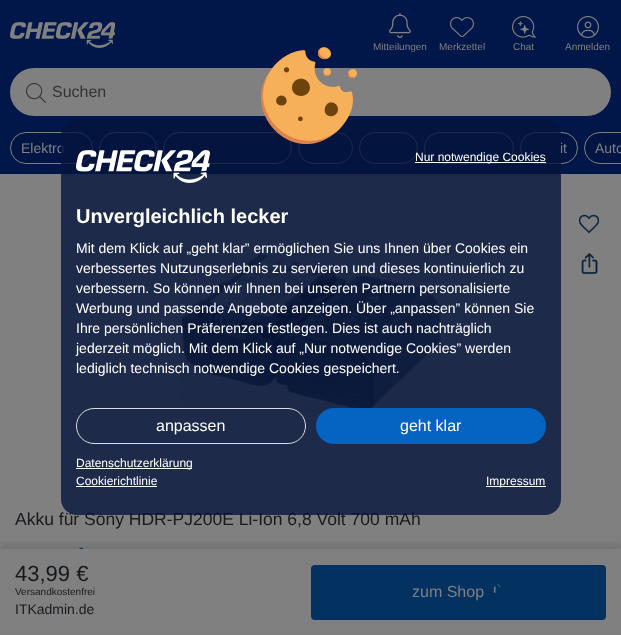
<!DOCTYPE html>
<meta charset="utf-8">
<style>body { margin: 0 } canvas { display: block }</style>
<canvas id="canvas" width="621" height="635"></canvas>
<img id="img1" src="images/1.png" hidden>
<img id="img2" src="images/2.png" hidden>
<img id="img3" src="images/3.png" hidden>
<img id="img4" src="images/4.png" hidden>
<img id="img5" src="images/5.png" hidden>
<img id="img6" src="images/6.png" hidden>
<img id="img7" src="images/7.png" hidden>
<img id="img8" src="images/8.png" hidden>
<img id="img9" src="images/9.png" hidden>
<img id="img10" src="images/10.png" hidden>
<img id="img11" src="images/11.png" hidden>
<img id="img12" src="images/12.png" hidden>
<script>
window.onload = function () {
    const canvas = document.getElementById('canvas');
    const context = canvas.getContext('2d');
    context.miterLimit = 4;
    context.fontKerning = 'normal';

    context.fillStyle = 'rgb(128, 128, 128)';
    context.fillRect(0, 0, 621, 635);
    context.fillStyle = 'rgb(1, 23, 74)';
    context.fillRect(0, 0, 621, 174);
    context.drawImage(document.getElementById('img1'), 10, 22, 105, 26);
    context.drawImage(document.getElementById('img2'), 389, 13, 22, 25);
    context.drawImage(document.getElementById('img3'), 450, 17, 24, 20);
    context.drawImage(document.getElementById('img4'), 512, 16, 24, 22);
    context.drawImage(document.getElementById('img5'), 577, 16, 22, 22);
    context.fillStyle = 'rgb(128, 128, 128)';
    context.beginPath();
    context.roundRect(10, 68, 601, 48, 24);
    context.fill();
    context.drawImage(document.getElementById('img6'), 26, 83, 20, 20);
    context.fillStyle = 'rgb(1, 21, 69)';
    context.beginPath();
    context.roundRect(10.5, 132.5, 82, 31, 15.5);
    context.fill();
    context.strokeStyle = 'rgb(128, 128, 128)';
    context.stroke();
    context.beginPath();
    context.roundRect(99.5, 132.5, 57, 31, 15.5);
    context.fill();
    context.stroke();
    context.beginPath();
    context.roundRect(163.5, 132.5, 128, 31, 15.5);
    context.fill();
    context.stroke();
    context.beginPath();
    context.roundRect(298.5, 132.5, 54, 31, 15.5);
    context.fill();
    context.stroke();
    context.beginPath();
    context.roundRect(359.5, 132.5, 58, 31, 15.5);
    context.fill();
    context.stroke();
    context.beginPath();
    context.roundRect(424.5, 132.5, 89, 31, 15.5);
    context.fill();
    context.stroke();
    context.beginPath();
    context.roundRect(520.5, 132.5, 57, 31, 15.5);
    context.fill();
    context.stroke();
    context.beginPath();
    context.roundRect(584, 132, 37, 32, [16, 0, 0, 16]);
    context.fill();
    context.beginPath();
    context.roundRect(584.5, 132.5, 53, 31, 15.5);
    context.stroke();
    context.drawImage(document.getElementById('img7'), 579, 214, 20, 20);
    context.drawImage(document.getElementById('img8'), 581, 253, 17, 21);
    context.drawImage(document.getElementById('img9'), 181, 253, 260, 159);
    context.fillStyle = 'rgba(91, 91, 91, 0.35)';
    context.filter = 'blur(2.5px)';
    context.beginPath();
    context.rect(0, 544, 621, 86);
    context.fill();
    context.filter = 'none';
    context.fillStyle = 'rgb(128, 128, 128)';
    context.fillRect(0, 549, 621, 83);
    context.fillStyle = 'rgb(3, 50, 97)';
    context.beginPath();
    context.roundRect(311, 565, 295, 55, 4);
    context.fill();
    context.drawImage(document.getElementById('img10'), 493, 583, 8, 10);
    context.font = '10px Liberation Sans';
    context.fillStyle = 'rgb(128, 128, 128)';
    context.fillText('Mitteilungen', 373, 50);
    context.fillText('Merkzettel', 439, 50);
    context.fillText('Chat', 513, 50);
    context.fillText('Anmelden', 565, 50);
    context.font = '16px Liberation Sans';
    context.fillStyle = 'rgb(51, 51, 51)';
    context.fillText('Suchen', 52, 97);
    context.font = '14px Liberation Sans';
    context.fillStyle = 'rgb(128, 128, 128)';
    context.fillText('Elektro', 21, 153);
    context.fillText('it', 560, 153);
    context.fillText('Auto', 595, 153);
    context.font = '17.5px Liberation Sans';
    context.fillStyle = 'rgb(23, 25, 28)';
    context.fillText('Akku für Sony HDR-PJ200E Li-Ion 6,8 Volt 700 mAh', 15, 525);
    context.font = '14px Liberation Sans';
    context.fillStyle = 'rgb(3, 50, 97)';
    context.fillText('-', 79, 552);
    context.font = '22px Liberation Sans';
    context.fillStyle = 'rgb(23, 25, 28)';
    context.fillText('43,99 €', 15, 581);
    context.font = '10px Liberation Sans';
    context.fillText('Versandkostenfrei', 15, 595);
    context.font = '14px Liberation Sans';
    context.fillText('ITKadmin.de', 15, 614);
    context.font = '16px Liberation Sans';
    context.fillStyle = 'rgb(128, 128, 128)';
    context.fillText('zum Shop', 412, 597);
    context.fillStyle = 'rgba(4, 20, 60, 0.8)';
    context.beginPath();
    context.roundRect(61, 120, 500, 395, 16);
    context.fill();
    context.drawImage(document.getElementById('img11'), 261, 47, 96, 97);
    context.drawImage(document.getElementById('img12'), 76, 150, 134, 33);
    context.fillStyle = 'rgb(255, 255, 255)';
    context.fillRect(415, 162, 131, 1);
    context.font = '12px Liberation Sans';
    context.fillText('Nur notwendige Cookies', 415, 161);
    context.font = 'bold 20px Liberation Sans';
    context.fillText('Unvergleichlich lecker', 76, 223);
    context.font = '14px Liberation Sans';
    context.fillText('Mit dem Klick auf „geht klar” ermöglichen Sie uns Ihnen über Cookies ein', 76, 253);
    context.fillText('verbessertes Nutzungserlebnis zu servieren und dieses kontinuierlich zu', 76, 273);
    context.fillText('verbessern. So können wir Ihnen bei unseren Partnern personalisierte', 76, 293);
    context.fillText('Werbung und passende Angebote anzeigen. Über „anpassen” können Sie', 76, 313);
    context.fillText('Ihre persönlichen Präferenzen festlegen. Dies ist auch nachträglich', 76, 333);
    context.fillText('jederzeit möglich. Mit dem Klick auf „Nur notwendige Cookies” werden', 76, 353);
    context.fillText('lediglich technisch notwendige Cookies gespeichert.', 76, 373);
    context.beginPath();
    context.roundRect(76.5, 408.5, 229, 35, 17.5);
    context.strokeStyle = 'rgb(220, 220, 220)';
    context.stroke();
    context.font = '16px Liberation Sans';
    context.fillText('anpassen', 156, 431);
    context.fillStyle = 'rgb(5, 99, 193)';
    context.beginPath();
    context.roundRect(316, 408, 230, 36, 18);
    context.fill();
    context.fillStyle = 'rgb(255, 255, 255)';
    context.fillText('geht klar', 400, 431);
    context.fillRect(76, 468, 116, 1);
    context.font = '12px Liberation Sans';
    context.fillText('Datenschutzerklärung', 76, 467);
    context.fillText('Cookierichtlinie', 76, 485);
    context.fillRect(76, 486, 81, 1);
    context.fillRect(486, 486, 60, 1);
    context.fillText('Impressum', 486, 485);
};
</script>
